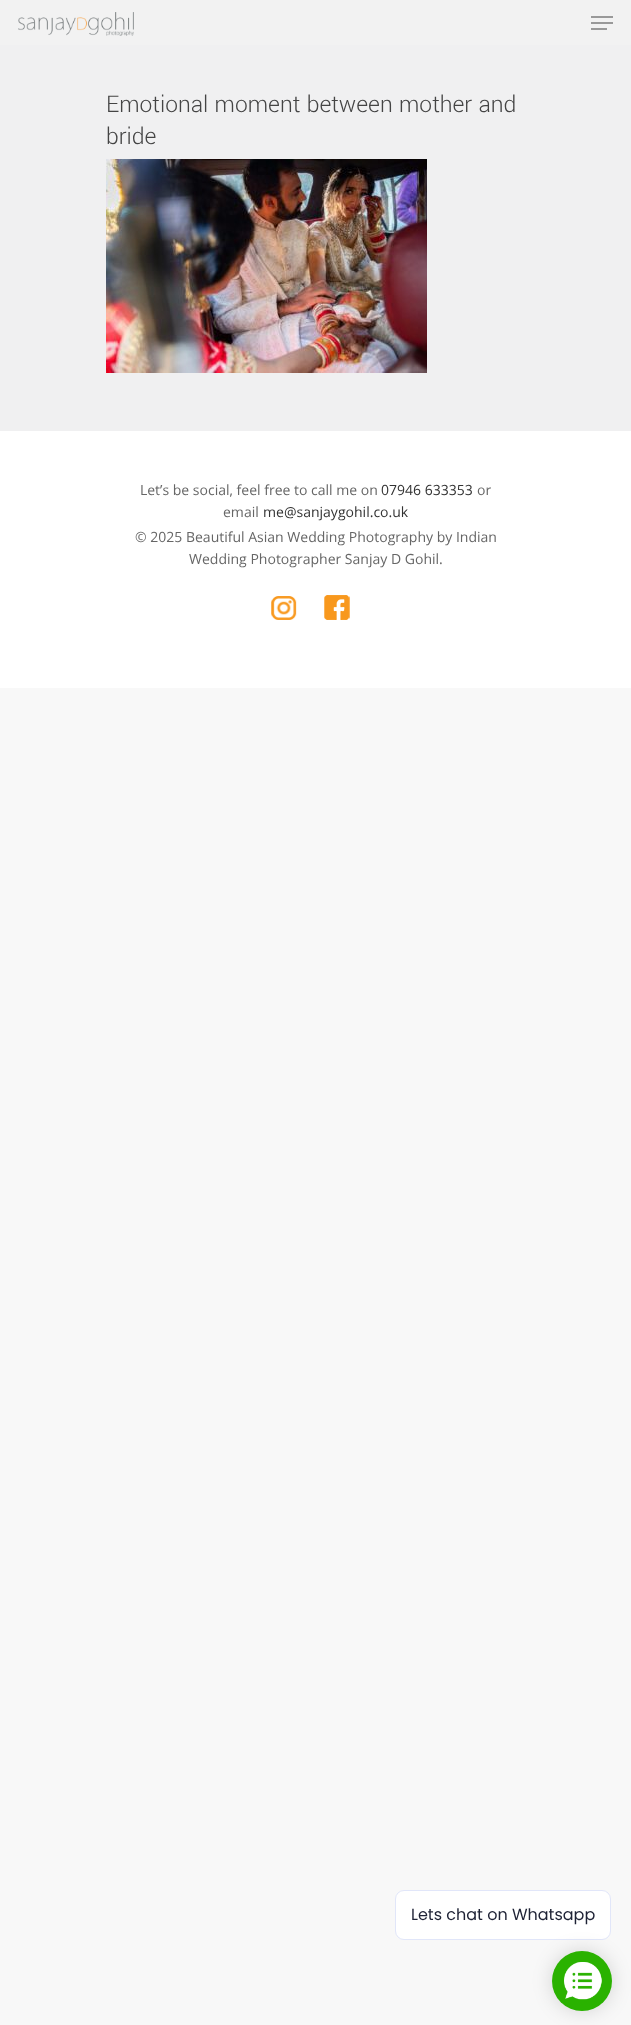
<!DOCTYPE html>
<meta charset="utf-8">
<style>body { margin: 0 } canvas { display: block }</style>
<canvas id="canvas" width="631" height="2025"></canvas>
<img id="img1" src="images/1.png" hidden>
<img id="img2" src="images/2.png" hidden>
<img id="img3" src="images/3.png" hidden>
<img id="img4" src="images/4.png" hidden>
<img id="img5" src="images/5.png" hidden>
<script>
window.onload = function () {
    const canvas = document.getElementById('canvas');
    const context = canvas.getContext('2d');
    context.miterLimit = 4;
    context.fontKerning = 'normal';

    context.fillStyle = 'rgb(248, 248, 248)';
    context.fillRect(0, 0, 631, 2025);
    context.fillStyle = 'rgb(240, 240, 241)';
    context.fillRect(0, 45, 631, 386);
    context.fillStyle = 'rgb(242, 242, 242)';
    context.fillRect(0, 0, 631, 45);
    context.drawImage(document.getElementById('img1'), 18, 12, 116, 24);
    context.fillStyle = 'rgb(153, 153, 153)';
    context.fillRect(591, 16, 22, 2);
    context.fillRect(591, 28, 16, 2);
    context.fillRect(591, 22, 22, 2);
    context.drawImage(document.getElementById('img2'), 106, 159, 321, 214);
    context.fillStyle = 'rgb(255, 255, 255)';
    context.fillRect(0, 431, 631, 257);
    context.drawImage(document.getElementById('img3'), 271, 596, 26, 24);
    context.drawImage(document.getElementById('img4'), 324, 595, 26, 25);
    context.beginPath();
    context.roundRect(395.5, 1890.5, 215, 49, 8.5);
    context.fill();
    context.strokeStyle = 'rgb(225, 230, 249)';
    context.stroke();
    context.fillStyle = 'rgba(0, 0, 0, 0.15)';
    context.filter = 'blur(10px)';
    context.beginPath();
    context.roundRect(552, 1951, 60, 60, 30);
    context.fill();
    context.filter = 'none';
    context.fillStyle = 'rgb(42, 178, 0)';
    context.beginPath();
    context.arc(582, 1981, 30, 0, 2 * Math.PI);
    context.fill();
    context.drawImage(document.getElementById('img5'), 564, 1962, 38, 38);
    context.font = '300 25.5px Yantramanav';
    context.fillStyle = 'rgb(68, 68, 68)';
    context.fillText('Emotional moment between mother and', 106, 112);
    context.fillText('bride', 106, 144);
    context.font = '14px Open Sans';
    context.fillStyle = 'rgb(102, 102, 102)';
    context.fillText('Let’s be social, feel free to call me on', 140, 495);
    context.fillStyle = 'rgb(51, 51, 51)';
    context.fillText('07946 633353', 381, 495);
    context.fillStyle = 'rgb(102, 102, 102)';
    context.fillText('or', 477, 495);
    context.fillText('email', 223, 517);
    context.fillStyle = 'rgb(51, 51, 51)';
    context.fillText('me@sanjaygohil.co.uk', 263, 517);
    context.fillStyle = 'rgb(102, 102, 102)';
    context.fillText('© 2025 Beautiful Asian Wedding Photography by Indian', 135, 542);
    context.fillText('Wedding Photographer Sanjay D Gohil.', 189, 564);
    context.font = '16px Poppins';
    context.fillStyle = 'rgb(30, 34, 53)';
    context.fillText('Lets chat on Whatsapp', 411, 1920);
};
</script>
